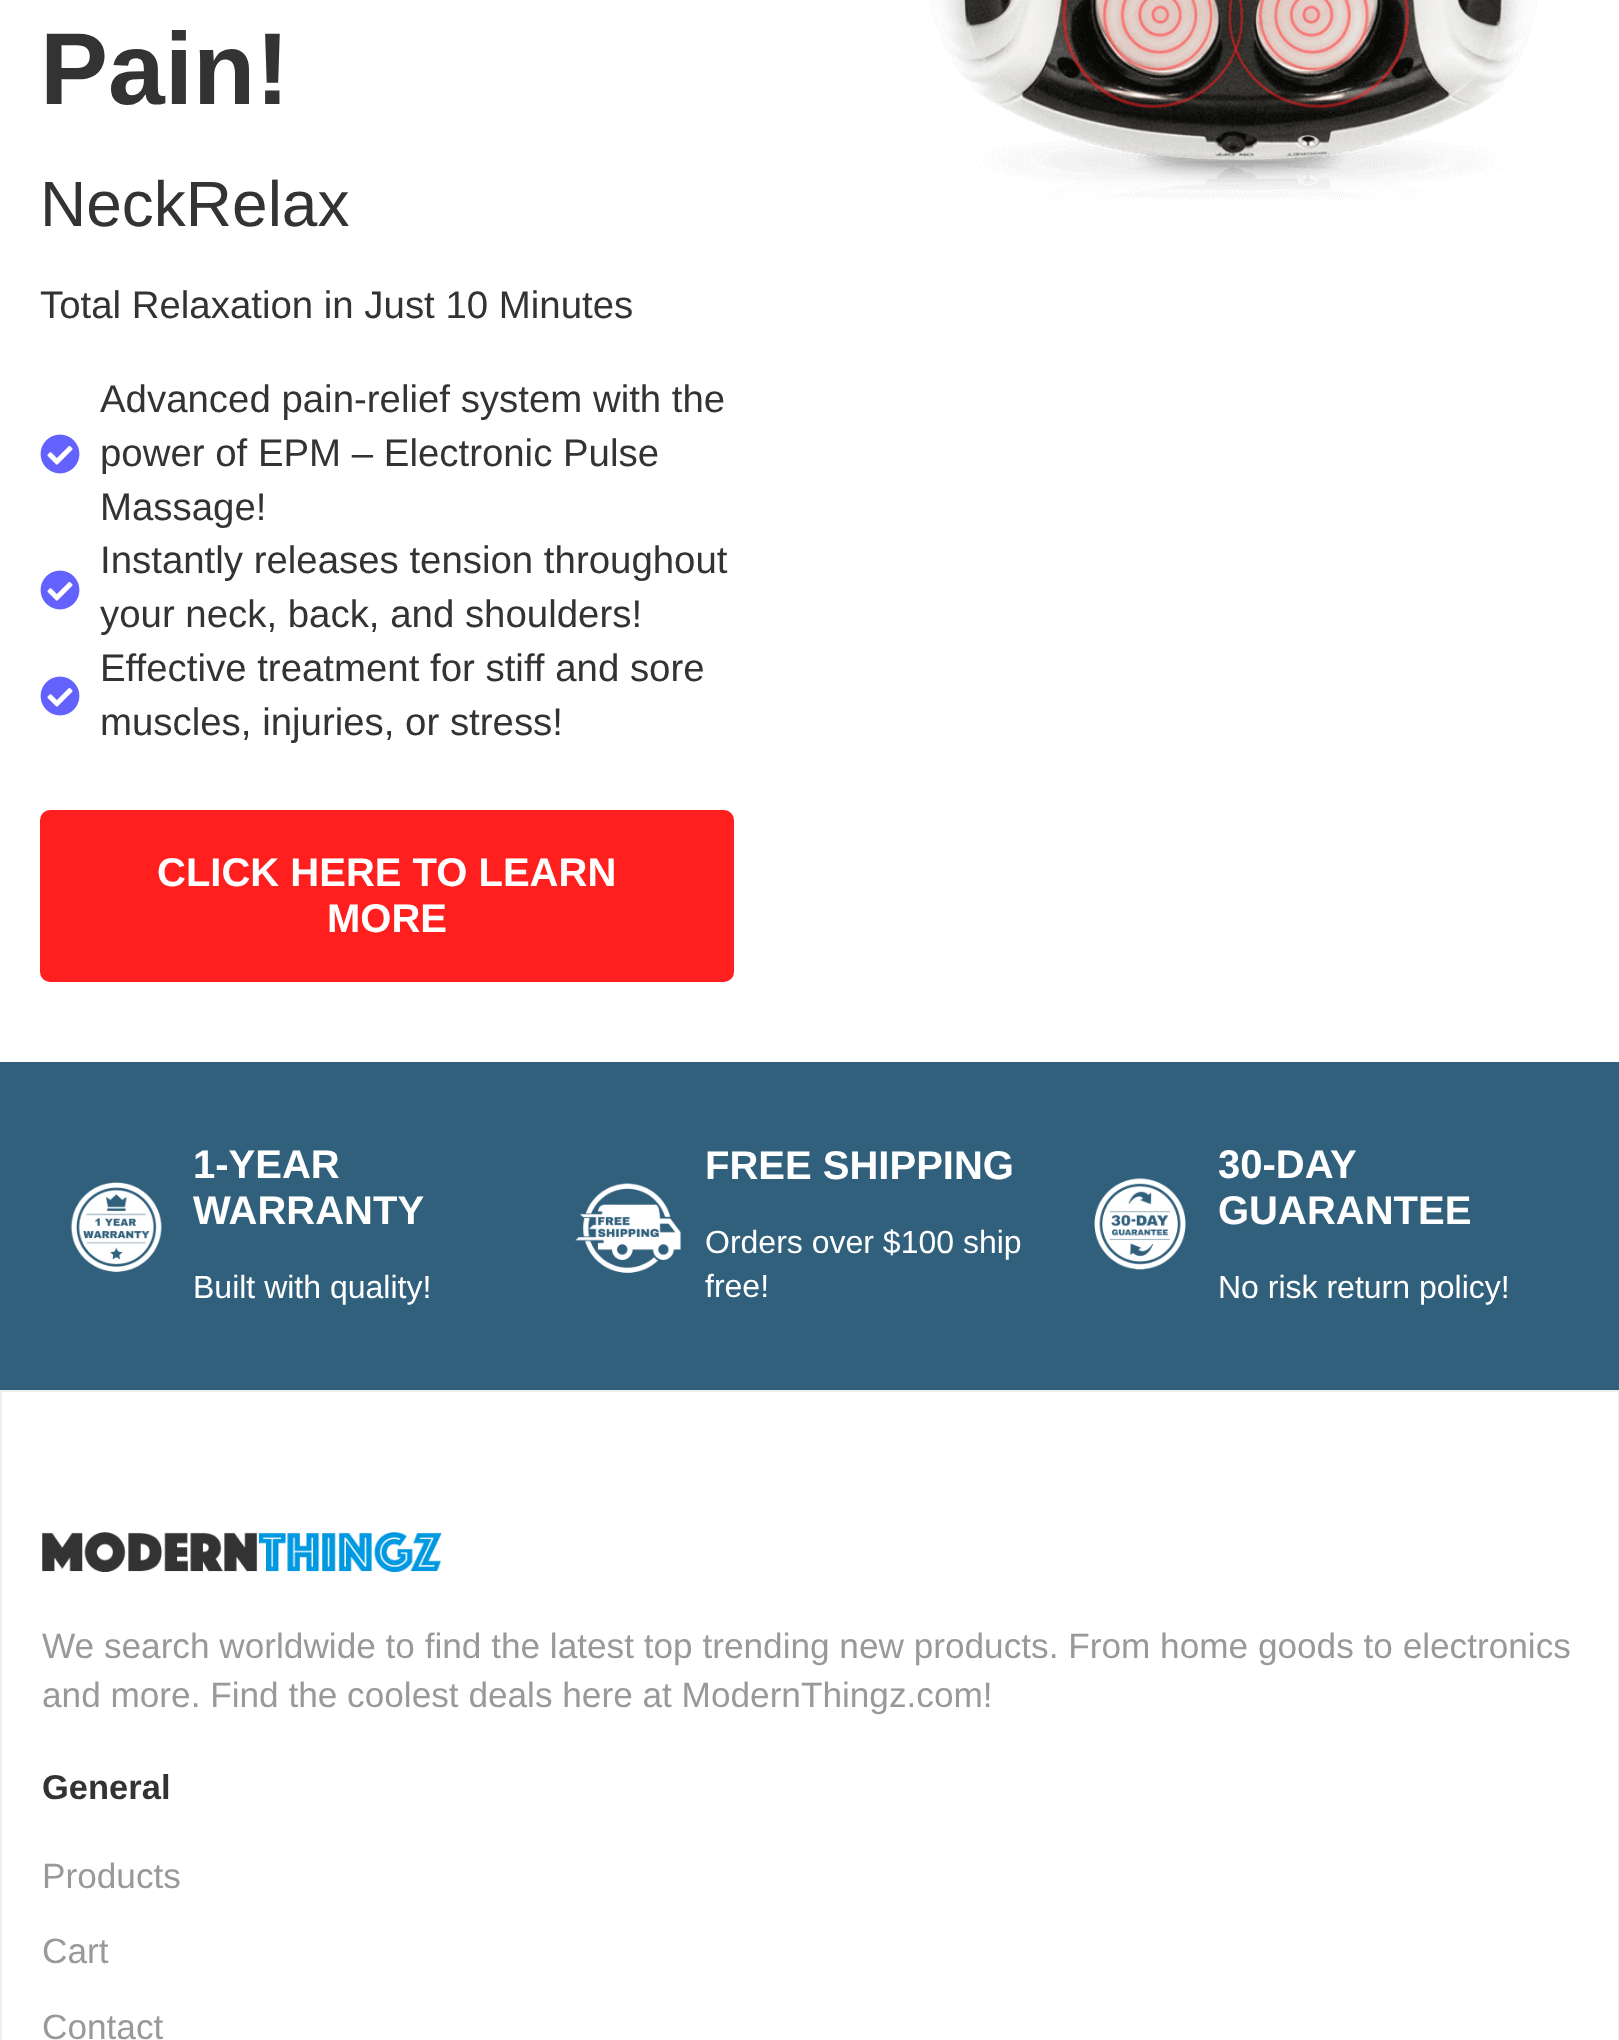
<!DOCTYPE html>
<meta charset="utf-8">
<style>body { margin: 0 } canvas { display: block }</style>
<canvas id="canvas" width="1619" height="2040"></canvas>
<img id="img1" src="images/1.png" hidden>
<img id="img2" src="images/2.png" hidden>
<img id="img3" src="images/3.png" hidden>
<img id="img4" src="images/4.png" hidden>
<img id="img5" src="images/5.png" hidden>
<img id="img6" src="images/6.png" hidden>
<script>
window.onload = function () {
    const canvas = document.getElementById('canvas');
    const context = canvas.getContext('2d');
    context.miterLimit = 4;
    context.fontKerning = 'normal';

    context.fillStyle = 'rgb(255, 255, 255)';
    context.fillRect(0, 0, 1619, 2040);
    context.drawImage(document.getElementById('img1'), 40, 434, 40, 40);
    context.drawImage(document.getElementById('img1'), 40, 570, 40, 40);
    context.drawImage(document.getElementById('img1'), 40, 676, 40, 40);
    context.fillStyle = 'rgb(255, 31, 31)';
    context.beginPath();
    context.roundRect(40, 810, 694, 172, 10);
    context.fill();
    context.drawImage(document.getElementById('img2'), 930, 0, 607, 203);
    context.fillStyle = 'rgb(49, 96, 125)';
    context.fillRect(0, 1062, 1619, 328);
    context.drawImage(document.getElementById('img3'), 70, 1182, 92, 90);
    context.drawImage(document.getElementById('img4'), 575, 1183, 106, 90);
    context.drawImage(document.getElementById('img5'), 1094, 1178, 92, 92);
    context.strokeStyle = 'rgb(238, 238, 238)';
    context.lineWidth = 2;
    context.strokeRect(1, 1391, 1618, 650);
    context.drawImage(document.getElementById('img6'), 42, 1532, 400, 40);
    context.font = 'bold 102px Liberation Sans';
    context.fillStyle = 'rgb(51, 51, 51)';
    context.fillText('Pain!', 40, 104);
    context.font = '64px Liberation Sans';
    context.fillText('NeckRelax', 40, 226);
    context.font = '38.4px Liberation Sans';
    context.fillText('Total Relaxation in Just 10 Minutes', 40, 318);
    context.fillText('Advanced pain-relief system with the', 100, 412);
    context.fillText('power of EPM – Electronic Pulse', 100, 466);
    context.fillText('Massage!', 100, 520);
    context.fillText('Instantly releases tension throughout', 100, 573);
    context.fillText('your neck, back, and shoulders!', 100, 627);
    context.fillText('Effective treatment for stiff and sore', 100, 681);
    context.fillText('muscles, injuries, or stress!', 100, 735);
    context.font = 'bold 40px Liberation Sans';
    context.fillStyle = 'rgb(255, 255, 255)';
    context.fillText('CLICK HERE TO LEARN', 157, 886);
    context.fillText('MORE', 327, 932);
    context.fillText('1-YEAR', 193, 1178);
    context.fillText('WARRANTY', 193, 1224);
    context.font = '32px Liberation Sans';
    context.fillText('Built with quality!', 193, 1298);
    context.font = 'bold 40px Liberation Sans';
    context.fillText('FREE SHIPPING', 705, 1179);
    context.font = '32px Liberation Sans';
    context.fillText('Orders over $100 ship', 705, 1253);
    context.fillText('free!', 705, 1297);
    context.font = 'bold 40px Liberation Sans';
    context.fillText('30-DAY', 1218, 1178);
    context.fillText('GUARANTEE', 1218, 1224);
    context.font = '32px Liberation Sans';
    context.fillText('No risk return policy!', 1218, 1298);
    context.font = '35.2px Liberation Sans';
    context.fillStyle = 'rgb(153, 153, 153)';
    context.fillText('We search worldwide to find the latest top trending new products. From home goods to electronics', 42, 1658);
    context.fillText('and more. Find the coolest deals here at ModernThingz.com!', 42, 1707);
    context.font = 'bold 34.5px Liberation Sans';
    context.fillStyle = 'rgb(51, 51, 51)';
    context.fillText('General', 42, 1799);
    context.font = '35.2px Liberation Sans';
    context.fillStyle = 'rgb(153, 153, 153)';
    context.fillText('Products', 42, 1888);
    context.fillText('Cart', 42, 1963);
    context.fillText('Contact', 42, 2039);
};
</script>
